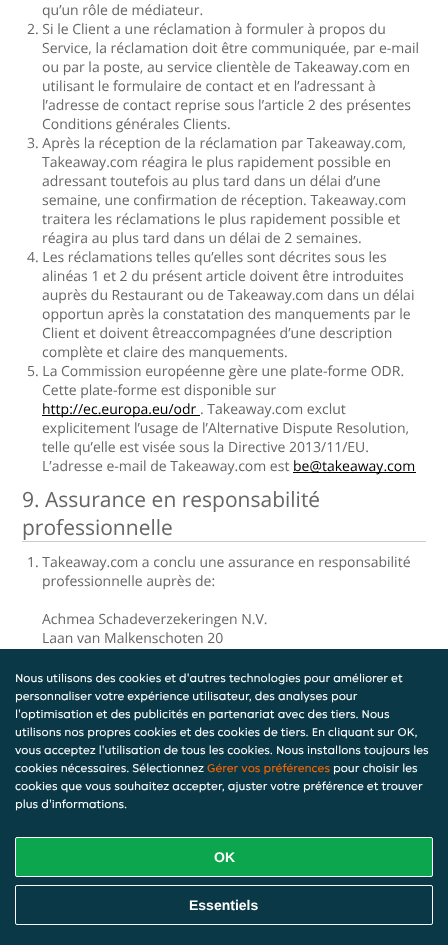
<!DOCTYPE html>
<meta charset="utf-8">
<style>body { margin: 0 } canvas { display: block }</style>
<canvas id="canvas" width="448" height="945"></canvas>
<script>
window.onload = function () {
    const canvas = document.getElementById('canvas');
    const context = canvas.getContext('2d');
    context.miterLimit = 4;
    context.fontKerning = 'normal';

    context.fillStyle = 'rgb(255, 255, 255)';
    context.fillRect(0, 0, 448, 945);
    context.fillStyle = 'rgb(0, 0, 0)';
    context.fillRect(42, 415, 158, 1);
    context.fillRect(293, 472, 123, 1);
    context.fillStyle = 'rgb(204, 204, 204)';
    context.fillRect(22, 541, 404, 1);
    context.fillStyle = 'rgb(10, 56, 71)';
    context.fillRect(0, 649, 448, 296);
    context.fillStyle = 'rgb(12, 166, 79)';
    context.beginPath();
    context.roundRect(15.5, 837.5, 417, 39, 1.5);
    context.fill();
    context.strokeStyle = 'rgb(255, 255, 255)';
    context.stroke();
    context.beginPath();
    context.roundRect(15.5, 885.5, 417, 39, 1.5);
    context.stroke();
    context.font = '14px Open Sans';
    context.fillStyle = 'rgb(102, 102, 102)';
    context.fillText('qu’un rôle de médiateur.', 42, 15);
    context.fillText('2. Si le Client a une réclamation à formuler à propos du', 27, 34);
    context.fillText('Service, la réclamation doit être communiquée, par e-mail', 42, 53);
    context.fillText('ou par la poste, au service clientèle de Takeaway.com en', 42, 72);
    context.fillText('utilisant le formulaire de contact et en l’adressant à', 42, 91);
    context.fillText('l’adresse de contact reprise sous l’article 2 des présentes', 42, 110);
    context.fillText('Conditions générales Clients.', 42, 129);
    context.fillText('3. Après la réception de la réclamation par Takeaway.com,', 27, 148);
    context.fillText('Takeaway.com réagira le plus rapidement possible en', 42, 167);
    context.fillText('adressant toutefois au plus tard dans un délai d’une', 42, 186);
    context.fillText('semaine, une confirmation de réception. Takeaway.com', 42, 205);
    context.fillText('traitera les réclamations le plus rapidement possible et', 42, 224);
    context.fillText('réagira au plus tard dans un délai de 2 semaines.', 42, 243);
    context.fillText('4. Les réclamations telles qu’elles sont décrites sous les', 27, 262);
    context.fillText('alinéas 1 et 2 du présent article doivent être introduites', 42, 281);
    context.fillText('auprès du Restaurant ou de Takeaway.com dans un délai', 42, 300);
    context.fillText('opportun après la constatation des manquements par le', 42, 319);
    context.fillText('Client et doivent êtreaccompagnées d’une description', 42, 338);
    context.fillText('complète et claire des manquements.', 42, 357);
    context.fillText('5. La Commission européenne gère une plate-forme ODR.', 27, 376);
    context.fillText('Cette plate-forme est disponible sur', 42, 395);
    context.fillStyle = 'rgb(0, 0, 0)';
    context.fillText('http://ec.europa.eu/odr', 42, 414);
    context.fillStyle = 'rgb(102, 102, 102)';
    context.fillText('. Takeaway.com exclut', 200, 414);
    context.fillText('explicitement l’usage de l’Alternative Dispute Resolution,', 42, 433);
    context.fillText('telle qu’elle est visée sous la Directive 2013/11/EU.', 42, 452);
    context.fillText('L’adresse e-mail de Takeaway.com est', 42, 471);
    context.fillStyle = 'rgb(0, 0, 0)';
    context.fillText('be@takeaway.com', 293, 471);
    context.font = '21px Open Sans';
    context.fillStyle = 'rgb(102, 102, 102)';
    context.fillText('9. Assurance en responsabilité', 22, 507);
    context.fillText('professionnelle', 22, 535);
    context.font = '14px Open Sans';
    context.fillText('1. Takeaway.com a conclu une assurance en responsabilité', 27, 567);
    context.fillText('professionnelle auprès de:', 42, 586);
    context.fillText('Achmea Schadeverzekeringen N.V.', 42, 624);
    context.fillText('Laan van Malkenschoten 20', 42, 643);
    context.font = '12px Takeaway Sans';
    context.fillStyle = 'rgb(255, 255, 255)';
    context.fillText('Nous utilisons des cookies et d\'autres technologies pour améliorer et', 15, 682);
    context.fillText('personnaliser votre expérience utilisateur, des analyses pour', 15, 700);
    context.fillText('l\'optimisation et des publicités en partenariat avec des tiers. Nous', 15, 718);
    context.fillText('utilisons nos propres cookies et des cookies de tiers. En cliquant sur OK,', 15, 736);
    context.fillText('vous acceptez l\'utilisation de tous les cookies. Nous installons toujours les', 15, 754);
    context.fillText('cookies nécessaires. Sélectionnez', 15, 772);
    context.fillStyle = 'rgb(248, 102, 0)';
    context.fillText('Gérer vos préférences', 207, 772);
    context.fillStyle = 'rgb(255, 255, 255)';
    context.fillText('pour choisir les', 333, 772);
    context.fillText('cookies que vous souhaitez accepter, ajuster votre préférence et trouver', 15, 790);
    context.fillText('plus d\'informations.', 15, 808);
    context.font = 'bold 14px Liberation Sans';
    context.fillText('OK', 214, 862);
    context.fillText('Essentiels', 189, 910);
};
</script>
